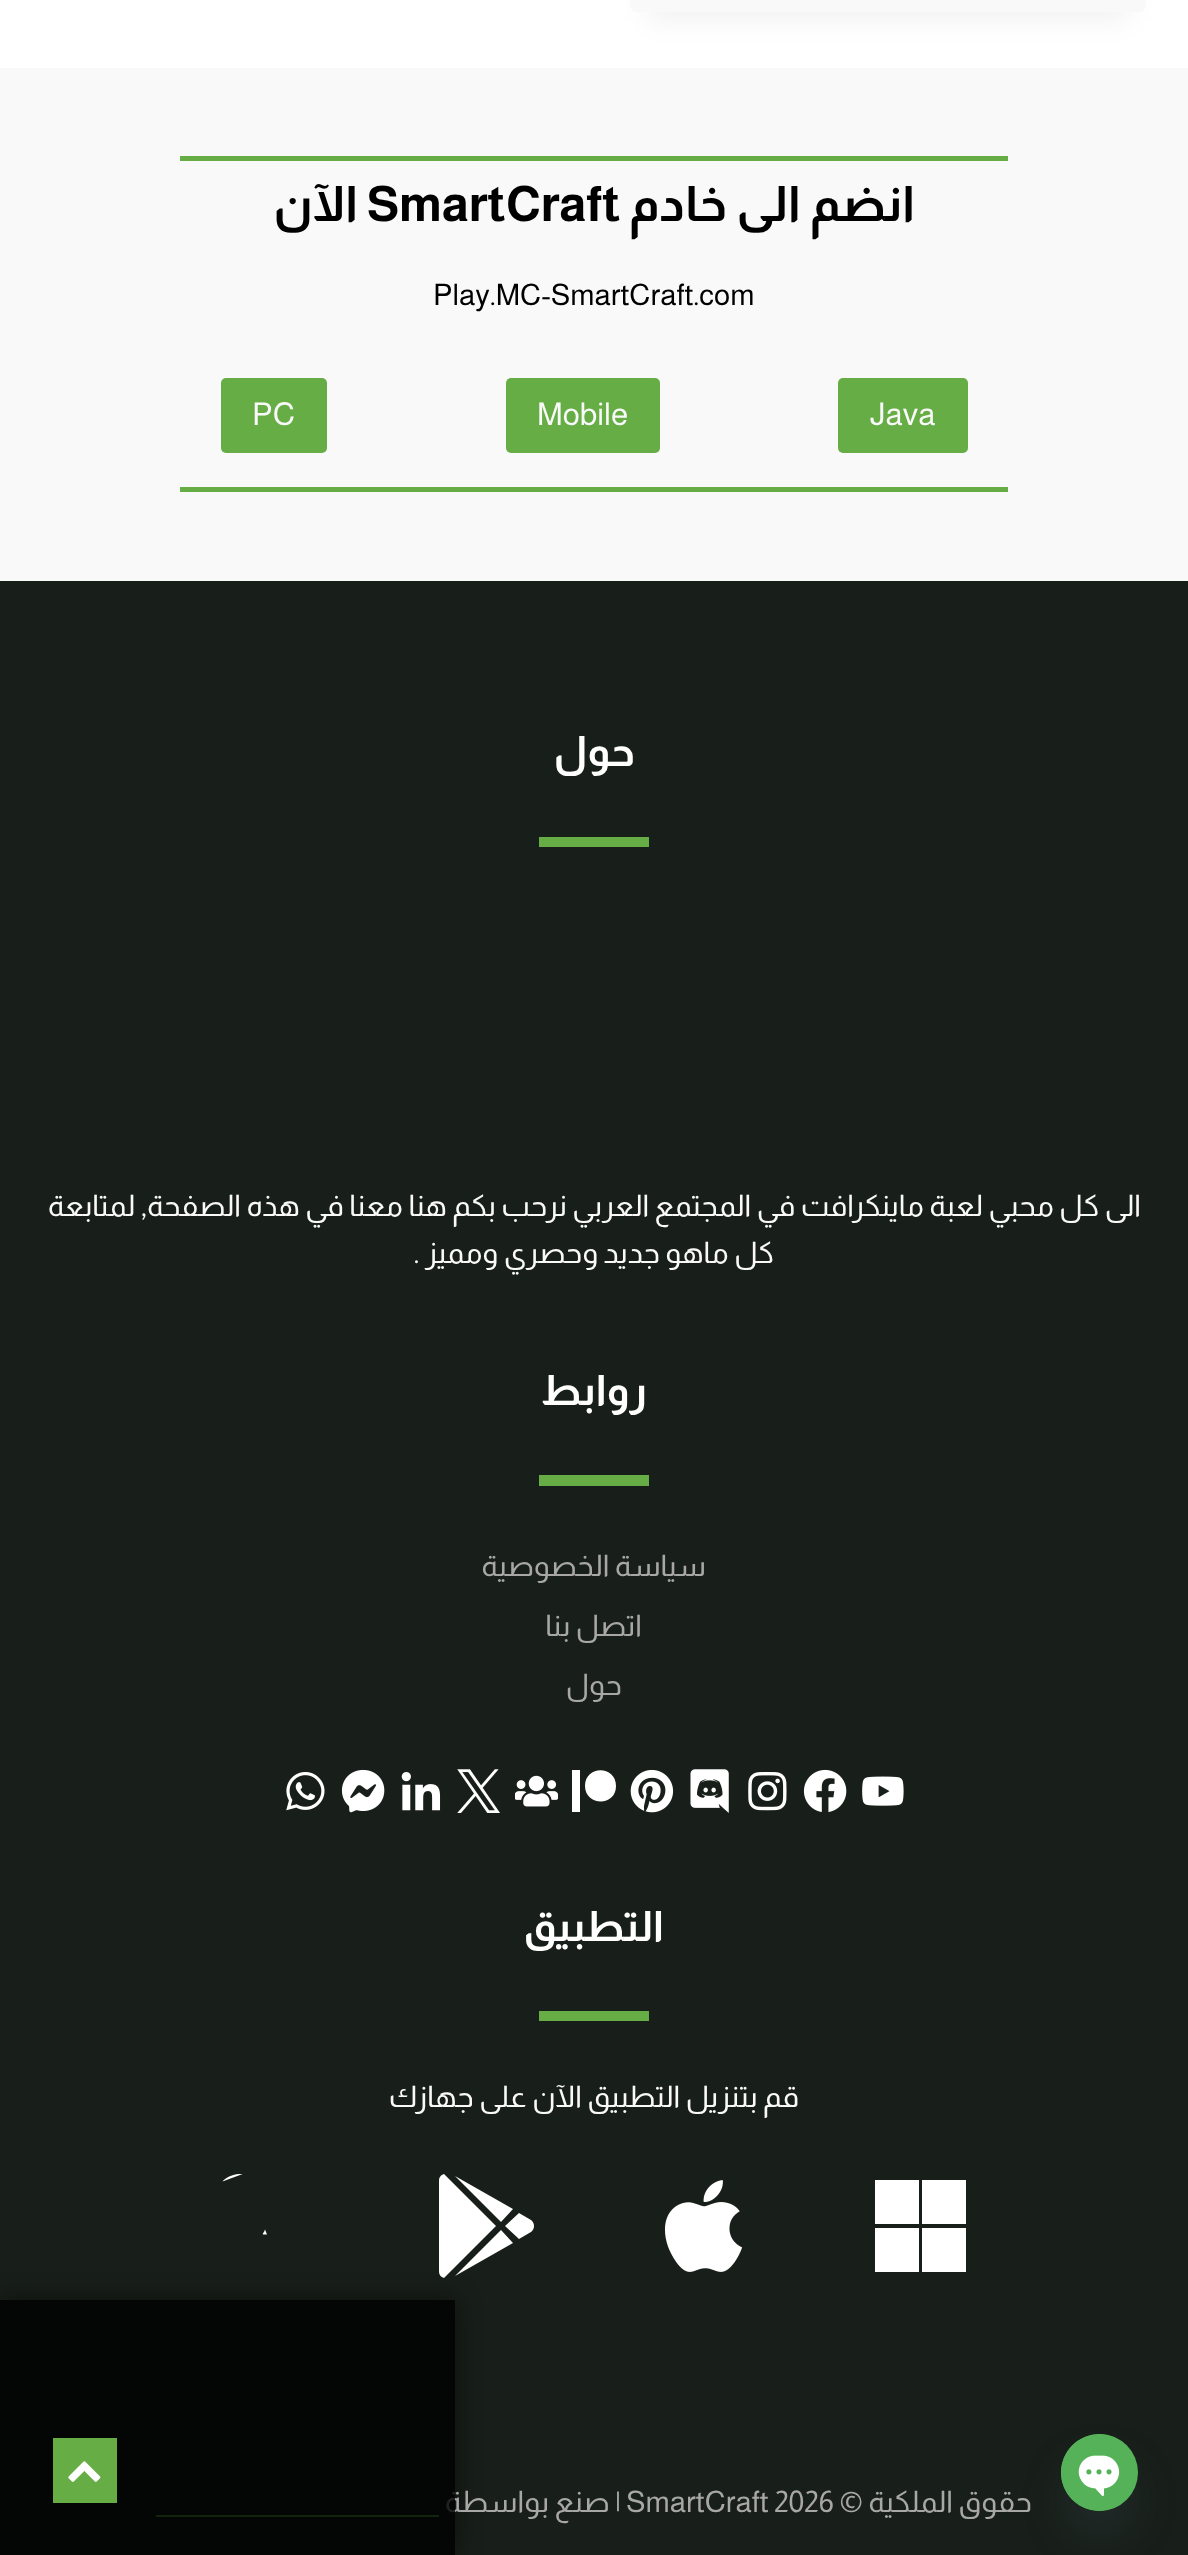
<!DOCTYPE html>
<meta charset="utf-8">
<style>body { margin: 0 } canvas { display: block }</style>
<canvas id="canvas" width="1188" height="2555"></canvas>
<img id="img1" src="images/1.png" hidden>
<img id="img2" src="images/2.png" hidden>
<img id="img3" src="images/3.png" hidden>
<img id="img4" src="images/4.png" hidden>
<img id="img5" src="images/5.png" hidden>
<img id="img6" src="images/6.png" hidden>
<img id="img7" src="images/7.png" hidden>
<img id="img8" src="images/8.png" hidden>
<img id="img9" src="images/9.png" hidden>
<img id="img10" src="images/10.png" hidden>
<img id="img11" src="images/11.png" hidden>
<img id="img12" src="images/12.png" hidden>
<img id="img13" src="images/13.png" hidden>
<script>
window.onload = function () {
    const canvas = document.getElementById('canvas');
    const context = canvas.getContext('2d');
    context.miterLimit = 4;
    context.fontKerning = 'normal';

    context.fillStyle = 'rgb(255, 255, 255)';
    context.fillRect(0, 0, 1188, 2555);
    context.fillStyle = 'rgba(0, 0, 0, 0.05)';
    context.filter = 'blur(13px)';
    context.beginPath();
    context.rect(648, -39, 481, 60);
    context.fill();
    context.filter = 'none';
    context.fillStyle = 'rgb(249, 249, 249)';
    context.beginPath();
    context.roundRect(630, -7, 516, 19, 7);
    context.fill();
    context.fillRect(0, 68, 1188, 513);
    context.fillStyle = 'rgb(103, 173, 70)';
    context.fillRect(180, 156, 828, 5);
    context.beginPath();
    context.roundRect(838, 378, 130, 75, 5);
    context.fill();
    context.beginPath();
    context.roundRect(506, 378, 154, 75, 5);
    context.fill();
    context.beginPath();
    context.roundRect(221, 378, 106, 75, 5);
    context.fill();
    context.fillRect(180, 487, 828, 5);
    context.fillStyle = 'rgb(24, 30, 25)';
    context.fillRect(0, 581, 1188, 1974);
    context.fillStyle = 'rgb(103, 173, 70)';
    context.fillRect(539, 837, 110, 10);
    context.fillRect(539, 1475, 110, 11);
    context.drawImage(document.getElementById('img1'), 862, 1776, 42, 30);
    context.drawImage(document.getElementById('img2'), 803, 1769, 44, 43);
    context.drawImage(document.getElementById('img3'), 748, 1772, 39, 39);
    context.drawImage(document.getElementById('img4'), 690, 1769, 39, 44);
    context.drawImage(document.getElementById('img5'), 630, 1769, 44, 44);
    context.fillStyle = 'rgb(255, 255, 255)';
    context.beginPath();
    context.moveTo(616, 1786);
    context.bezierCurveTo(616, 1807, 585, 1806, 585, 1786);
    context.bezierCurveTo(585, 1765, 616, 1765, 616, 1786);
    context.closePath();
    context.moveTo(572, 1812);
    context.lineTo(580, 1812);
    context.lineTo(580, 1770);
    context.lineTo(572, 1770);
    context.closePath();
    context.fill();
    context.drawImage(document.getElementById('img6'), 515, 1775, 43, 32);
    context.drawImage(document.getElementById('img7'), 457, 1769, 43, 44);
    context.drawImage(document.getElementById('img8'), 401, 1772, 40, 39);
    context.drawImage(document.getElementById('img9'), 341, 1769, 44, 44);
    context.drawImage(document.getElementById('img10'), 286, 1772, 39, 39);
    context.fillStyle = 'rgb(103, 173, 70)';
    context.fillRect(539, 2011, 110, 10);
    context.fillStyle = 'rgb(255, 255, 255)';
    context.beginPath();
    context.moveTo(875, 2180);
    context.lineTo(919, 2180);
    context.lineTo(919, 2224);
    context.lineTo(875, 2224);
    context.closePath();
    context.moveTo(922, 2180);
    context.lineTo(966, 2180);
    context.lineTo(966, 2224);
    context.lineTo(922, 2224);
    context.closePath();
    context.moveTo(875, 2228);
    context.lineTo(919, 2228);
    context.lineTo(919, 2272);
    context.lineTo(875, 2272);
    context.closePath();
    context.moveTo(922, 2228);
    context.lineTo(966, 2228);
    context.lineTo(966, 2272);
    context.lineTo(922, 2272);
    context.closePath();
    context.fill();
    context.drawImage(document.getElementById('img11'), 664, 2180, 79, 92);
    context.beginPath();
    context.moveTo(501, 2222);
    context.lineTo(455, 2176);
    context.lineTo(513, 2209);
    context.closePath();
    context.moveTo(444, 2174);
    context.bezierCurveTo(441, 2175, 439, 2177, 439, 2181);
    context.lineTo(439, 2271);
    context.bezierCurveTo(439, 2275, 441, 2277, 444, 2278);
    context.lineTo(496, 2226);
    context.closePath();
    context.moveTo(531, 2220);
    context.lineTo(519, 2213);
    context.lineTo(505, 2226);
    context.lineTo(519, 2239);
    context.lineTo(531, 2232);
    context.bezierCurveTo(535, 2229, 535, 2223, 531, 2220);
    context.closePath();
    context.moveTo(455, 2276);
    context.lineTo(513, 2243);
    context.lineTo(501, 2230);
    context.closePath();
    context.fill();
    context.save();
    context.beginPath();
    context.rect(217, 2174, 105, 105);
    context.clip();
    context.beginPath();
    context.moveTo(244, 2173.5);
    context.bezierCurveTo(236, 2174, 227.5, 2175.5, 222.5, 2181.5);
    context.fill();
    context.restore();
    context.beginPath();
    context.moveTo(264, 2232);
    context.bezierCurveTo(263.5, 2232.5, 262, 2234.5, 263.5, 2234.5);
    context.lineTo(267, 2234.5);
    context.lineTo(265, 2229.5);
    context.fill();
    context.fillStyle = 'rgb(103, 173, 70)';
    context.fillRect(156, 2515, 283, 2);
    context.fillStyle = 'rgba(73, 104, 126, 0.16)';
    context.filter = 'blur(21px)';
    context.beginPath();
    context.roundRect(1061, 2462, 77, 77, 38.5);
    context.fill();
    context.filter = 'none';
    context.fillStyle = 'rgb(86, 178, 89)';
    context.beginPath();
    context.arc(1099.5, 2472.5, 38.5, 0, 2 * Math.PI);
    context.fill();
    context.drawImage(document.getElementById('img12'), 1061, 2434, 59, 77);
    context.save();
    context.beginPath();
    context.moveTo(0, 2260);
    context.lineTo(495, 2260);
    context.lineTo(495, 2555);
    context.lineTo(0, 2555);
    context.closePath();
    context.moveTo(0, 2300);
    context.lineTo(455, 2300);
    context.lineTo(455, 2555);
    context.lineTo(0, 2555);
    context.closePath();
    context.clip('evenodd');
    context.fillStyle = 'rgba(0, 0, 0, 0.5)';
    context.filter = 'blur(13px)';
    context.beginPath();
    context.rect(0, 2300, 455, 255);
    context.fill();
    context.filter = 'none';
    context.restore();
    context.direction = 'rtl';
    context.font = 'bold 49px Almarai';
    context.fillStyle = 'rgb(0, 0, 0)';
    context.fillText('انضم الى خادم', 915, 221);
    context.direction = 'ltr';
    context.fillText('SmartCraft', 367, 221);
    context.direction = 'rtl';
    context.fillText('الآن', 358, 221);
    context.direction = 'ltr';
    context.font = '29.75px Almarai';
    context.fillText('Play.MC-SmartCraft.com', 433, 305);
    context.font = '31.5px Almarai';
    context.fillStyle = 'rgb(249, 249, 249)';
    context.fillText('Java', 870, 425);
    context.fillText('Mobile', 537, 425);
    context.fillText('PC', 252, 425);
    context.direction = 'rtl';
    context.font = 'bold 42px Almarai';
    context.fillStyle = 'rgb(255, 255, 255)';
    context.fillText('حول', 635, 766);
    context.font = '29.75px Almarai';
    context.fillStyle = 'rgb(249, 249, 249)';
    context.fillText('الى كل محبي لعبة ماينكرافت في المجتمع العربي نرحب بكم هنا معنا في هذه الصفحة, لمتابعة', 1141, 1216);
    context.fillText('كل ماهو جديد وحصري ومميز .', 774, 1263);
    context.font = 'bold 42px Almarai';
    context.fillStyle = 'rgb(255, 255, 255)';
    context.fillText('روابط', 647, 1405);
    context.font = '29.75px Almarai';
    context.fillStyle = 'rgb(167, 167, 167)';
    context.fillText('سياسة الخصوصية', 706, 1576);
    context.fillText('اتصل بنا', 642, 1636);
    context.fillText('حول', 622, 1695);
    context.font = 'bold 42px Almarai';
    context.fillStyle = 'rgb(255, 255, 255)';
    context.fillText('التطبيق', 664, 1941);
    context.font = '29.75px Almarai';
    context.fillStyle = 'rgb(249, 249, 249)';
    context.fillText('قم بتنزيل التطبيق الآن على جهازك', 799, 2107);
    context.fillStyle = 'rgb(167, 167, 167)';
    context.fillText('حقوق الملكية ©', 1032, 2512);
    context.direction = 'ltr';
    context.fillText('SmartCraft 2026', 626, 2512);
    context.direction = 'rtl';
    context.fillText('| صنع بواسطة', 621, 2512);
    context.fillStyle = 'rgba(0, 0, 0, 0.8)';
    context.fillRect(0, 2300, 455, 255);
    context.fillStyle = 'rgb(103, 173, 70)';
    context.fillRect(53, 2438, 64, 65);
    context.drawImage(document.getElementById('img13'), 68, 2461, 33, 21);
};
</script>
